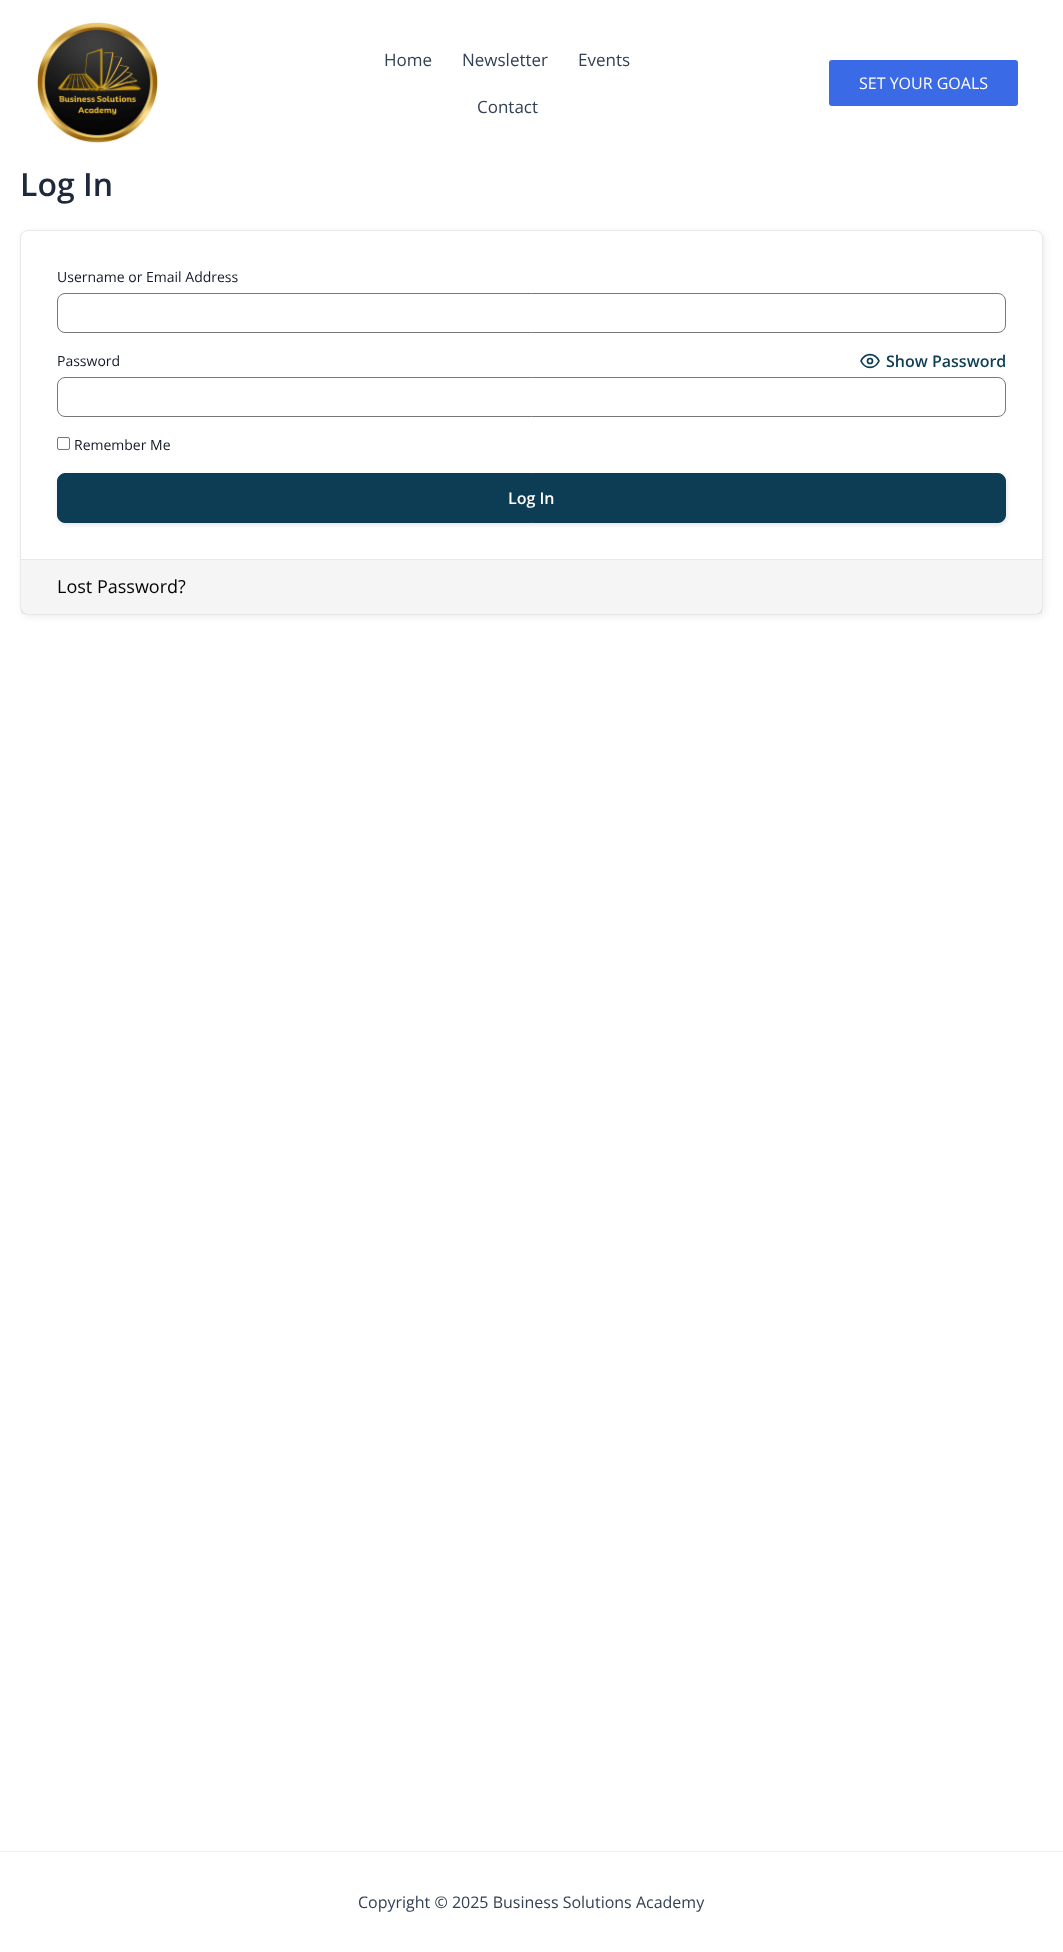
<!DOCTYPE html>
<meta charset="utf-8">
<style>body { margin: 0 } canvas { display: block }</style>
<canvas id="canvas" width="1063" height="1952"></canvas>
<img id="img1" src="images/1.png" hidden>
<script>
window.onload = function () {
    const canvas = document.getElementById('canvas');
    const context = canvas.getContext('2d');
    context.miterLimit = 4;
    context.fontKerning = 'normal';

    context.fillStyle = 'rgb(255, 255, 255)';
    context.fillRect(0, 0, 1063, 1952);
    context.drawImage(document.getElementById('img1'), 37, 22, 121, 121);
    context.fillStyle = 'rgb(59, 106, 231)';
    context.beginPath();
    context.roundRect(829, 60, 189, 46, 3);
    context.fill();
    context.fillStyle = 'rgba(0, 0, 0, 0.07)';
    context.filter = 'blur(3.5px)';
    context.beginPath();
    context.roundRect(22, 232, 1023, 385, 8);
    context.fill();
    context.filter = 'none';
    context.fillStyle = 'rgb(255, 255, 255)';
    context.beginPath();
    context.roundRect(20.5, 230.5, 1022, 384, 7.5);
    context.fill();
    context.strokeStyle = 'rgb(232, 232, 232)';
    context.stroke();
    context.beginPath();
    context.roundRect(57.5, 293.5, 948, 39, 7.5);
    context.strokeStyle = 'rgb(119, 119, 119)';
    context.stroke();
    context.beginPath();
    context.moveTo(861, 361);
    context.bezierCurveTo(865, 352.5, 875, 352.5, 879, 361);
    context.bezierCurveTo(875, 369.5, 865, 369.5, 861, 361);
    context.closePath();
    context.strokeStyle = 'rgb(12, 61, 84)';
    context.lineWidth = 1.7;
    context.lineCap = 'round';
    context.lineJoin = 'round';
    context.stroke();
    context.beginPath();
    context.arc(870, 361, 2.5, 0, 2 * Math.PI);
    context.stroke();
    context.beginPath();
    context.roundRect(57.5, 377.5, 948, 39, 7.5);
    context.strokeStyle = 'rgb(119, 119, 119)';
    context.lineWidth = 1;
    context.lineJoin = 'miter';
    context.stroke();
    context.beginPath();
    context.roundRect(57.5, 437.5, 12, 12, 1.5);
    context.strokeStyle = 'rgb(118, 118, 118)';
    context.stroke();
    context.fillStyle = 'rgba(0, 0, 0, 0.1)';
    context.filter = 'blur(2px)';
    context.beginPath();
    context.roundRect(58, 475, 949, 50, 8);
    context.fill();
    context.filter = 'none';
    context.fillStyle = 'rgb(12, 61, 84)';
    context.beginPath();
    context.roundRect(57.5, 473.5, 948, 49, 7.5);
    context.fill();
    context.strokeStyle = 'rgb(12, 61, 84)';
    context.stroke();
    context.fillStyle = 'rgba(0, 0, 0, 0.04)';
    context.fillRect(21, 560, 1021, 54);
    context.fillStyle = 'rgb(232, 232, 232)';
    context.fillRect(21, 559, 1021, 1);
    context.fillStyle = 'rgb(238, 238, 238)';
    context.fillRect(0, 1851, 1063, 1);
    context.font = '17px Open Sans';
    context.fillStyle = 'rgb(51, 65, 85)';
    context.fillText('Home', 384, 66);
    context.fillText('Newsletter', 462, 66);
    context.fillText('Events', 578, 66);
    context.fillText('Contact', 477, 113);
    context.font = '16px Open Sans';
    context.fillStyle = 'rgb(255, 255, 255)';
    context.fillText('SET YOUR GOALS', 859, 89);
    context.font = '600 32px Open Sans';
    context.fillStyle = 'rgb(30, 41, 59)';
    context.fillText('Log In', 20, 196);
    context.font = '14px Open Sans';
    context.fillStyle = 'rgb(17, 24, 39)';
    context.fillText('Username or Email Address', 57, 282);
    context.fillText('Password', 57, 366);
    context.font = '600 16px Open Sans';
    context.fillStyle = 'rgb(12, 61, 84)';
    context.fillText('Show Password', 886, 367);
    context.font = '14px Open Sans';
    context.fillStyle = 'rgb(17, 24, 39)';
    context.fillText('Remember Me', 74, 450);
    context.font = '600 16px Open Sans';
    context.fillStyle = 'rgb(255, 255, 255)';
    context.fillText('Log In', 508, 504);
    context.font = '18px Open Sans';
    context.fillStyle = 'rgb(0, 0, 0)';
    context.fillText('Lost Password?', 57, 593);
    context.font = '16px Open Sans';
    context.fillStyle = 'rgb(51, 65, 85)';
    context.fillText('Copyright © 2025 Business Solutions Academy', 358, 1908);
};
</script>
